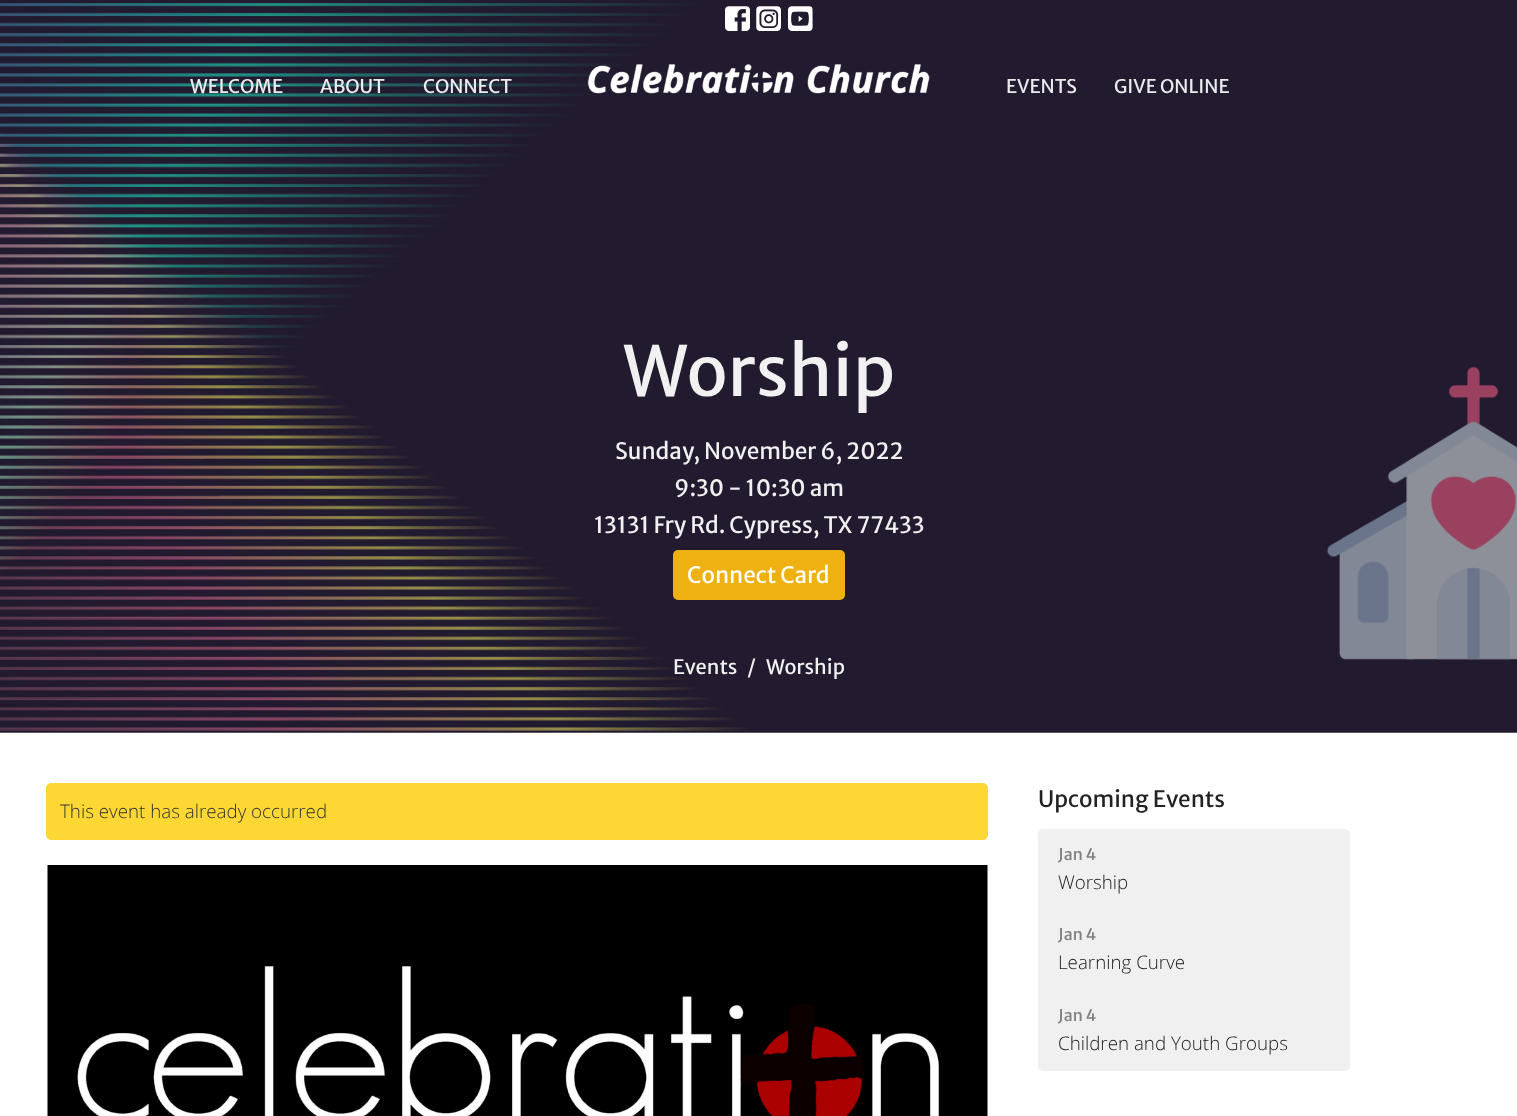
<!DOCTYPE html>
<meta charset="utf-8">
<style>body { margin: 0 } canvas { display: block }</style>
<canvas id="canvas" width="1517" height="1116"></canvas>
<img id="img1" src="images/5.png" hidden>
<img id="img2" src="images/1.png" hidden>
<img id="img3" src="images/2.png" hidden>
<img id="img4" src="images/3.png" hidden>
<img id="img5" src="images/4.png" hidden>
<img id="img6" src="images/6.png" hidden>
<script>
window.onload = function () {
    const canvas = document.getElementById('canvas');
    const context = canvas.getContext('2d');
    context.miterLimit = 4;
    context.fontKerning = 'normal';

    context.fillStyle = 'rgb(255, 255, 255)';
    context.fillRect(0, 0, 1517, 1116);
    context.fillStyle = 'rgb(153, 153, 153)';
    context.fillRect(0, 732, 1517, 1);
    context.drawImage(document.getElementById('img1'), 0, 0, 1517, 733);
    context.drawImage(document.getElementById('img2'), 725, 6, 25, 25);
    context.drawImage(document.getElementById('img3'), 756, 6, 25, 25);
    context.drawImage(document.getElementById('img4'), 788, 6, 25, 25);
    context.drawImage(document.getElementById('img5'), 587, 64, 343, 30);
    context.fillStyle = 'rgb(238, 177, 17)';
    context.beginPath();
    context.roundRect(673, 550, 172, 50, 5);
    context.fill();
    context.fillStyle = 'rgb(253, 216, 53)';
    context.beginPath();
    context.roundRect(46.5, 783.5, 941, 56, 4.5);
    context.fill();
    context.strokeStyle = 'rgb(253, 216, 53)';
    context.stroke();
    context.drawImage(document.getElementById('img6'), 47, 865, 941, 251);
    context.fillStyle = 'rgb(240, 240, 240)';
    context.beginPath();
    context.roundRect(1038, 829, 312, 81, [5, 5, 0, 0]);
    context.fill();
    context.fillRect(1038, 910, 312, 80);
    context.beginPath();
    context.roundRect(1038, 990, 312, 81, [0, 0, 5, 5]);
    context.fill();
    context.font = '18.75px Merriweather Sans';
    context.fillStyle = 'rgb(233, 235, 236)';
    context.fillText('WELCOME', 190, 93);
    context.fillText('ABOUT', 320, 93);
    context.fillText('CONNECT', 423, 93);
    context.fillText('EVENTS', 1006, 93);
    context.fillText('GIVE ONLINE', 1114, 93);
    context.font = '69px Merriweather Sans';
    context.fillStyle = 'rgb(241, 241, 241)';
    context.fillText('Worship', 623, 396);
    context.font = '22.5px Merriweather Sans';
    context.fillText('Sunday, November 6, 2022', 615, 459);
    context.fillText('9:30 - 10:30 am', 674, 496);
    context.fillText('13131 Fry Rd. Cypress, TX 77433', 594, 533);
    context.fillStyle = 'rgb(255, 255, 255)';
    context.fillText('Connect Card', 687, 583);
    context.font = '20px Merriweather Sans';
    context.fillStyle = 'rgb(241, 241, 241)';
    context.fillText('Events', 673, 674);
    context.fillText('/', 747, 674);
    context.fillText('Worship', 766, 674);
    context.font = '300 18.75px Open Sans';
    context.fillStyle = 'rgb(51, 51, 51)';
    context.fillText('This event has already occurred', 60, 818);
    context.font = '22.5px Merriweather Sans';
    context.fillStyle = 'rgb(34, 34, 34)';
    context.fillText('Upcoming Events', 1038, 807);
    context.font = '16px Merriweather Sans';
    context.fillStyle = 'rgb(128, 128, 128)';
    context.fillText('Jan 4', 1058, 860);
    context.font = '300 18.75px Open Sans';
    context.fillStyle = 'rgb(34, 34, 34)';
    context.fillText('Worship', 1058, 889);
    context.font = '16px Merriweather Sans';
    context.fillStyle = 'rgb(128, 128, 128)';
    context.fillText('Jan 4', 1058, 940);
    context.font = '300 18.75px Open Sans';
    context.fillStyle = 'rgb(34, 34, 34)';
    context.fillText('Learning Curve', 1058, 969);
    context.font = '16px Merriweather Sans';
    context.fillStyle = 'rgb(128, 128, 128)';
    context.fillText('Jan 4', 1058, 1021);
    context.font = '300 18.75px Open Sans';
    context.fillStyle = 'rgb(34, 34, 34)';
    context.fillText('Children and Youth Groups', 1058, 1050);
};
</script>
